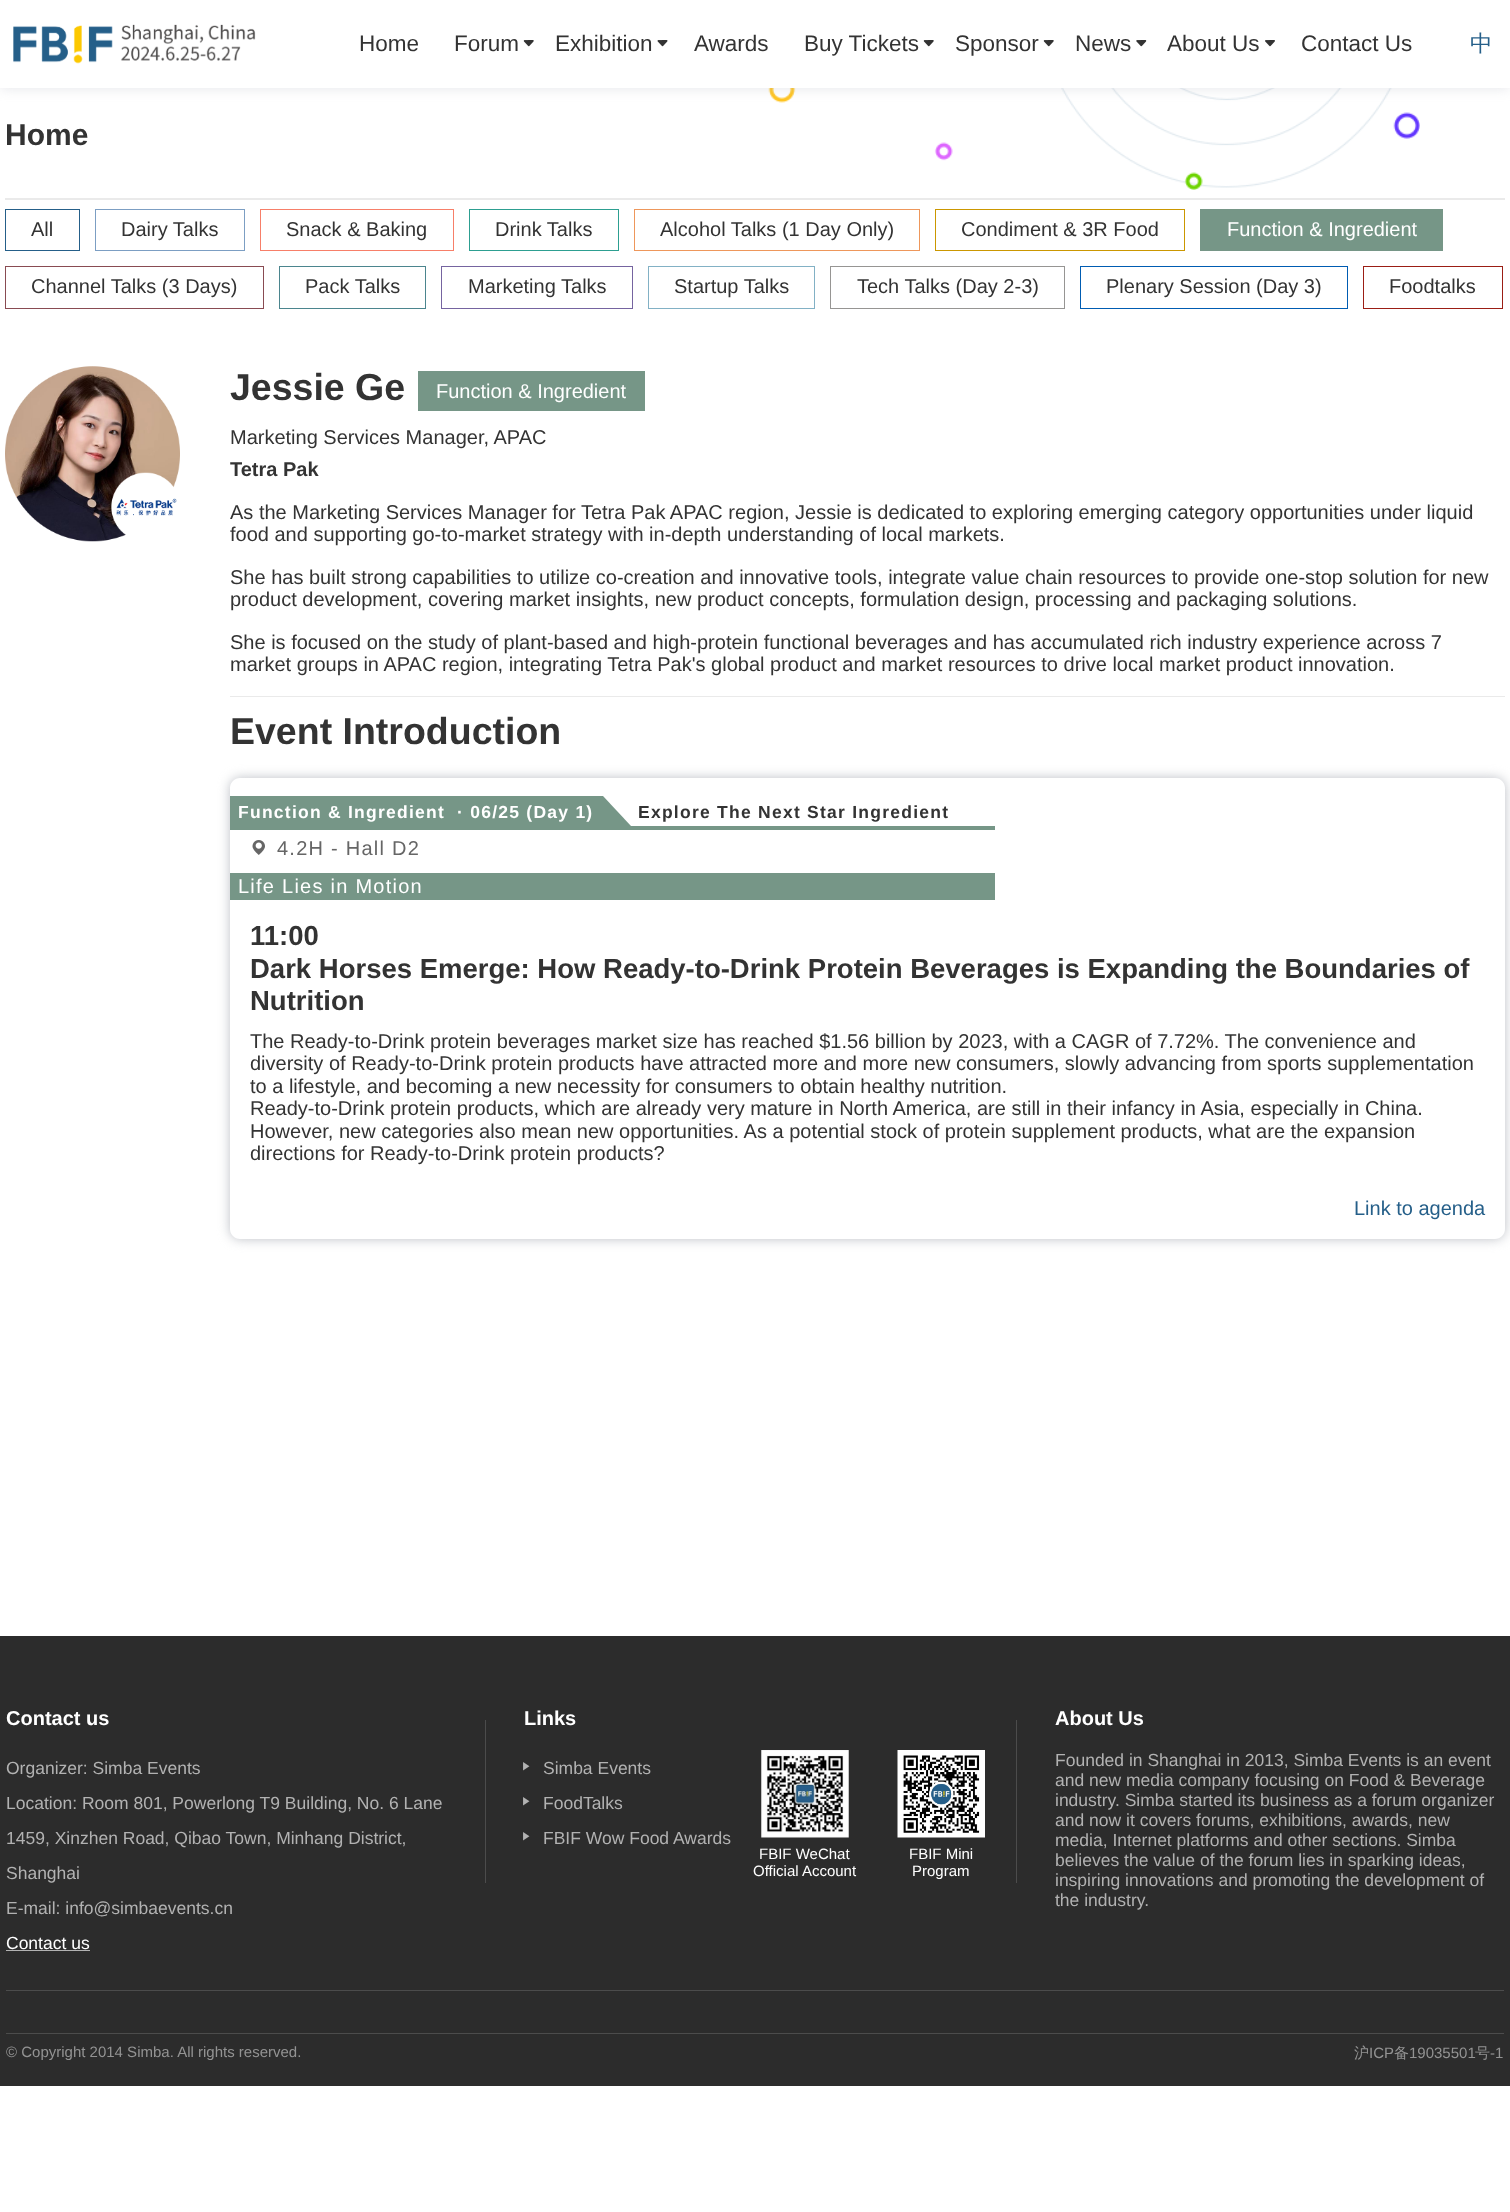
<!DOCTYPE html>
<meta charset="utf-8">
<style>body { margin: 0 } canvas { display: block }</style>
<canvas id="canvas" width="1510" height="2212"></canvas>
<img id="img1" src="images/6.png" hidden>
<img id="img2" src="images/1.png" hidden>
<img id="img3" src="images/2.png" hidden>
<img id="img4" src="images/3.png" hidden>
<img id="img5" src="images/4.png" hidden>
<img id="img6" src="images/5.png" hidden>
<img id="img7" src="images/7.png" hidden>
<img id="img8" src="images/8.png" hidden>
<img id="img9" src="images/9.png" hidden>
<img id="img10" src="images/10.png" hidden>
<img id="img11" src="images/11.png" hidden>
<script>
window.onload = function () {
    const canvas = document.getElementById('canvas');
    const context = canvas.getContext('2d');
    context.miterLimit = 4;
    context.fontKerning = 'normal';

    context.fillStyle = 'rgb(255, 255, 255)';
    context.fillRect(0, 0, 1510, 2212);
    context.drawImage(document.getElementById('img1'), 768, 88, 652, 102);
    context.fillStyle = 'rgba(176, 179, 191, 0.3)';
    context.filter = 'blur(6px)';
    context.beginPath();
    context.rect(0, 1, 1510, 88);
    context.fill();
    context.filter = 'none';
    context.fillStyle = 'rgb(255, 255, 255)';
    context.fillRect(0, 0, 1510, 88);
    context.drawImage(document.getElementById('img2'), 13, 24, 243, 40);
    context.drawImage(document.getElementById('img3'), 523, 40, 11, 7);
    context.drawImage(document.getElementById('img4'), 657, 40, 11, 7);
    context.drawImage(document.getElementById('img3'), 923, 40, 11, 7);
    context.drawImage(document.getElementById('img3'), 1043, 40, 11, 7);
    context.drawImage(document.getElementById('img5'), 1136, 40, 11, 7);
    context.drawImage(document.getElementById('img6'), 1265, 40, 10, 7);
    context.fillStyle = 'rgb(234, 234, 234)';
    context.fillRect(5, 198, 1500, 2);
    context.strokeStyle = 'rgb(37, 95, 137)';
    context.strokeRect(5.5, 209.5, 74, 41);
    context.strokeStyle = 'rgb(124, 158, 195)';
    context.strokeRect(95.5, 209.5, 149, 41);
    context.strokeStyle = 'rgb(247, 127, 105)';
    context.strokeRect(260.5, 209.5, 193, 41);
    context.strokeStyle = 'rgb(45, 159, 145)';
    context.strokeRect(469.5, 209.5, 149, 41);
    context.strokeStyle = 'rgb(238, 151, 91)';
    context.strokeRect(634.5, 209.5, 285, 41);
    context.strokeStyle = 'rgb(203, 151, 0)';
    context.strokeRect(935.5, 209.5, 249, 41);
    context.fillStyle = 'rgb(118, 150, 135)';
    context.fillRect(1200, 209, 243, 42);
    context.strokeStyle = 'rgb(137, 75, 82)';
    context.strokeRect(5.5, 266.5, 258, 42);
    context.strokeStyle = 'rgb(75, 133, 142)';
    context.strokeRect(279.5, 266.5, 146, 42);
    context.strokeStyle = 'rgb(117, 100, 160)';
    context.strokeRect(441.5, 266.5, 191, 42);
    context.strokeStyle = 'rgb(130, 177, 197)';
    context.strokeRect(648.5, 266.5, 166, 42);
    context.strokeStyle = 'rgb(150, 149, 147)';
    context.strokeRect(830.5, 266.5, 234, 42);
    context.strokeStyle = 'rgb(0, 92, 178)';
    context.strokeRect(1080.5, 266.5, 267, 42);
    context.strokeStyle = 'rgb(155, 30, 21)';
    context.strokeRect(1363.5, 266.5, 139, 42);
    context.drawImage(document.getElementById('img7'), 5, 366, 175, 176);
    context.fillRect(418, 371, 227, 40);
    context.fillStyle = 'rgb(234, 234, 234)';
    context.fillRect(230, 696, 1275, 1);
    context.save();
    context.beginPath();
    context.moveTo(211, 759);
    context.lineTo(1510, 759);
    context.lineTo(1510, 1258);
    context.lineTo(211, 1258);
    context.closePath();
    context.moveTo(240, 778);
    context.lineTo(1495, 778);
    context.bezierCurveTo(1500.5, 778, 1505, 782.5, 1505, 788);
    context.lineTo(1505, 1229);
    context.bezierCurveTo(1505, 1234.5, 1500.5, 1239, 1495, 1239);
    context.lineTo(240, 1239);
    context.bezierCurveTo(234.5, 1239, 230, 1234.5, 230, 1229);
    context.lineTo(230, 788);
    context.bezierCurveTo(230, 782.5, 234.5, 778, 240, 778);
    context.closePath();
    context.clip('evenodd');
    context.fillStyle = 'rgb(189, 192, 198)';
    context.filter = 'blur(6px)';
    context.beginPath();
    context.roundRect(230, 778, 1275, 461, 10);
    context.fill();
    context.filter = 'none';
    context.restore();
    context.fillStyle = 'rgb(118, 150, 135)';
    context.fillRect(230, 826, 765, 4);
    context.beginPath();
    context.moveTo(603, 796);
    context.lineTo(230, 796);
    context.lineTo(230, 826);
    context.lineTo(631, 826);
    context.closePath();
    context.fill();
    context.drawImage(document.getElementById('img8'), 252, 840, 13, 15);
    context.fillRect(230, 873, 765, 27);
    context.fillStyle = 'rgb(44, 44, 44)';
    context.fillRect(0, 1636, 1510, 450);
    context.fillStyle = 'rgb(178, 178, 178)';
    context.fillRect(6, 1950, 84, 1);
    context.fillStyle = 'rgb(76, 76, 76)';
    context.fillRect(485, 1720, 1, 163);
    context.drawImage(document.getElementById('img9'), 523, 1762, 7, 9);
    context.drawImage(document.getElementById('img9'), 523, 1797, 7, 9);
    context.drawImage(document.getElementById('img9'), 523, 1832, 7, 9);
    context.drawImage(document.getElementById('img10'), 761, 1750, 88, 88);
    context.drawImage(document.getElementById('img11'), 897, 1750, 88, 88);
    context.fillRect(1016, 1720, 1, 163);
    context.fillRect(6, 1990, 1498, 1);
    context.fillRect(6, 2033, 1498, 1);
    context.font = '22.5px Liberation Sans';
    context.fillStyle = 'rgb(51, 51, 51)';
    context.fillText('Home', 359, 51);
    context.fillText('Forum', 454, 51);
    context.fillText('Exhibition', 555, 51);
    context.fillText('Awards', 694, 51);
    context.fillText('Buy Tickets', 804, 51);
    context.fillText('Sponsor', 955, 51);
    context.fillText('News', 1075, 51);
    context.fillText('About Us', 1167, 51);
    context.fillText('Contact Us', 1301, 51);
    context.font = '500 22.5px WenQuanYi Zen Hei';
    context.fillStyle = 'rgb(37, 95, 137)';
    context.fillText('中', 1470, 51);
    context.font = 'bold 30px Liberation Sans';
    context.fillStyle = 'rgb(51, 51, 51)';
    context.fillText('Home', 5, 145);
    context.font = '20px Liberation Sans';
    context.fillText('All', 31, 236);
    context.fillText('Dairy Talks', 121, 236);
    context.fillText('Snack & Baking', 286, 236);
    context.fillText('Drink Talks', 495, 236);
    context.fillText('Alcohol Talks (1 Day Only)', 660, 236);
    context.fillText('Condiment & 3R Food', 961, 236);
    context.fillStyle = 'rgb(255, 255, 255)';
    context.fillText('Function & Ingredient', 1227, 236);
    context.fillStyle = 'rgb(51, 51, 51)';
    context.fillText('Channel Talks (3 Days)', 31, 293);
    context.fillText('Pack Talks', 305, 293);
    context.fillText('Marketing Talks', 468, 293);
    context.fillText('Startup Talks', 674, 293);
    context.fillText('Tech Talks (Day 2-3)', 857, 293);
    context.fillText('Plenary Session (Day 3)', 1106, 293);
    context.fillText('Foodtalks', 1389, 293);
    context.font = 'bold 37.5px Liberation Sans';
    context.fillText('Jessie Ge', 230, 400);
    context.font = '20px Liberation Sans';
    context.fillStyle = 'rgb(255, 255, 255)';
    context.fillText('Function & Ingredient', 436, 398);
    context.fillStyle = 'rgb(51, 51, 51)';
    context.fillText('Marketing Services Manager, APAC', 230, 444);
    context.font = 'bold 20px Liberation Sans';
    context.fillText('Tetra Pak', 230, 476);
    context.font = '20px Liberation Sans';
    context.fillText('As the Marketing Services Manager for Tetra Pak APAC region, Jessie is dedicated to exploring emerging category opportunities under liquid', 230, 519);
    context.fillText('food and supporting go-to-market strategy with in-depth understanding of local markets.', 230, 541);
    context.fillText('She has built strong capabilities to utilize co-creation and innovative tools, integrate value chain resources to provide one-stop solution for new', 230, 584);
    context.fillText('product development, covering market insights, new product concepts, formulation design, processing and packaging solutions.', 230, 606);
    context.fillText('She is focused on the study of plant-based and high-protein functional beverages and has accumulated rich industry experience across 7', 230, 649);
    context.fillText('market groups in APAC region, integrating Tetra Pak\'s global product and market resources to drive local market product innovation.', 230, 671);
    context.font = 'bold 37.5px Liberation Sans';
    context.fillText('Event Introduction', 230, 744);
    context.letterSpacing = '1.25px';
    context.font = 'bold 17.5px Liberation Sans';
    context.fillStyle = 'rgb(255, 255, 255)';
    context.fillText('Function & Ingredient', 238, 818);
    context.fillText('· 06/25 (Day 1)', 457, 818);
    context.fillStyle = 'rgb(51, 51, 51)';
    context.fillText('Explore The Next Star Ingredient', 638, 818);
    context.font = '20px Liberation Sans';
    context.fillStyle = 'rgb(102, 102, 102)';
    context.fillText('4.2H - Hall D2', 277, 855);
    context.fillStyle = 'rgb(255, 255, 255)';
    context.fillText('Life Lies in Motion', 238, 893);
    context.letterSpacing = '0px';
    context.font = 'bold 27.5px Liberation Sans';
    context.fillStyle = 'rgb(51, 51, 51)';
    context.fillText('11:00', 250, 945);
    context.fillText('Dark Horses Emerge: How Ready-to-Drink Protein Beverages is Expanding the Boundaries of', 250, 978);
    context.fillText('Nutrition', 250, 1010);
    context.font = '20px Liberation Sans';
    context.fillText('The Ready-to-Drink protein beverages market size has reached $1.56 billion by 2023, with a CAGR of 7.72%. The convenience and', 250, 1048);
    context.fillText('diversity of Ready-to-Drink protein products have attracted more and more new consumers, slowly advancing from sports supplementation', 250, 1070);
    context.fillText('to a lifestyle, and becoming a new necessity for consumers to obtain healthy nutrition.', 250, 1093);
    context.fillText('Ready-to-Drink protein products, which are already very mature in North America, are still in their infancy in Asia, especially in China.', 250, 1115);
    context.fillText('However, new categories also mean new opportunities. As a potential stock of protein supplement products, what are the expansion', 250, 1138);
    context.fillText('directions for Ready-to-Drink protein products?', 250, 1160);
    context.fillStyle = 'rgb(37, 95, 137)';
    context.fillText('Link to agenda', 1354, 1215);
    context.font = 'bold 20px Liberation Sans';
    context.fillStyle = 'rgb(255, 255, 255)';
    context.fillText('Contact us', 6, 1725);
    context.font = '17.5px Liberation Sans';
    context.fillStyle = 'rgb(178, 178, 178)';
    context.fillText('Organizer: Simba Events', 6, 1774);
    context.fillText('Location: Room 801, Powerlong T9 Building, No. 6 Lane', 6, 1809);
    context.fillText('1459, Xinzhen Road, Qibao Town, Minhang District,', 6, 1844);
    context.fillText('Shanghai', 6, 1879);
    context.fillText('E-mail: info@simbaevents.cn', 6, 1914);
    context.fillStyle = 'rgb(255, 255, 255)';
    context.fillText('Contact us', 6, 1949);
    context.font = 'bold 20px Liberation Sans';
    context.fillText('Links', 524, 1725);
    context.font = '17.5px Liberation Sans';
    context.fillStyle = 'rgb(178, 178, 178)';
    context.fillText('Simba Events', 543, 1774);
    context.fillText('FoodTalks', 543, 1809);
    context.fillText('FBIF Wow Food Awards', 543, 1844);
    context.font = '15px Liberation Sans';
    context.fillStyle = 'rgb(255, 255, 255)';
    context.fillText('FBIF WeChat', 759, 1859);
    context.fillText('Official Account', 753, 1876);
    context.fillText('FBIF Mini', 909, 1859);
    context.fillText('Program', 912, 1876);
    context.font = 'bold 20px Liberation Sans';
    context.fillText('About Us', 1055, 1725);
    context.font = '17.5px Liberation Sans';
    context.fillStyle = 'rgb(178, 178, 178)';
    context.fillText('Founded in Shanghai in 2013, Simba Events is an event', 1055, 1766);
    context.fillText('and new media company focusing on Food & Beverage', 1055, 1786);
    context.fillText('industry. Simba started its business as a forum organizer', 1055, 1806);
    context.fillText('and now it covers forums, exhibitions, awards, new', 1055, 1826);
    context.fillText('media, Internet platforms and other sections. Simba', 1055, 1846);
    context.fillText('believes the value of the forum lies in sparking ideas,', 1055, 1866);
    context.fillText('inspiring innovations and promoting the development of', 1055, 1886);
    context.fillText('the industry.', 1055, 1906);
    context.font = '15px Liberation Sans';
    context.fillStyle = 'rgb(147, 147, 147)';
    context.fillText('© Copyright 2014 Simba. All rights reserved.', 6, 2057);
    context.font = '500 15px WenQuanYi Zen Hei';
    context.fillText('沪', 1354, 2058);
    context.font = '15px Liberation Sans';
    context.fillText('ICP', 1369, 2058);
    context.font = '500 15px WenQuanYi Zen Hei';
    context.fillText('备', 1394, 2058);
    context.font = '15px Liberation Sans';
    context.fillText('19035501', 1409, 2058);
    context.font = '500 15px WenQuanYi Zen Hei';
    context.fillText('号', 1475, 2058);
    context.font = '15px Liberation Sans';
    context.fillText('-1', 1490, 2058);
};
</script>
